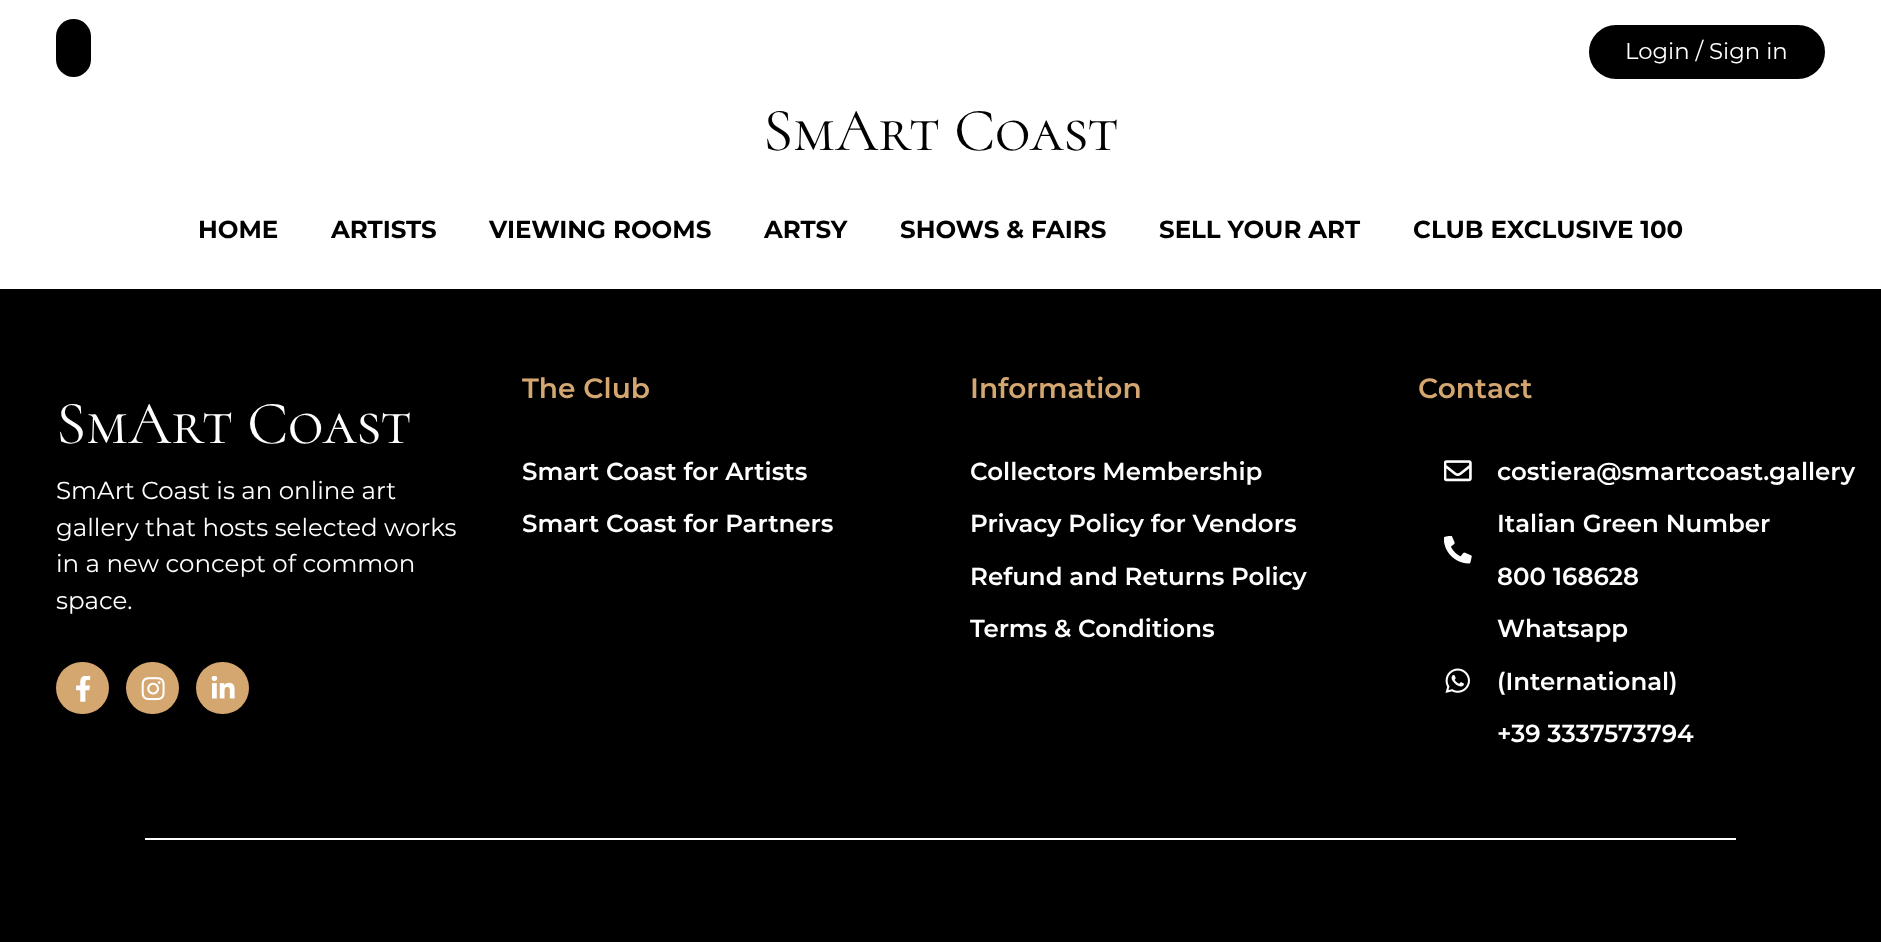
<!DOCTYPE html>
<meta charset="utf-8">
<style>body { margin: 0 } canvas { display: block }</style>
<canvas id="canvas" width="1881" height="942"></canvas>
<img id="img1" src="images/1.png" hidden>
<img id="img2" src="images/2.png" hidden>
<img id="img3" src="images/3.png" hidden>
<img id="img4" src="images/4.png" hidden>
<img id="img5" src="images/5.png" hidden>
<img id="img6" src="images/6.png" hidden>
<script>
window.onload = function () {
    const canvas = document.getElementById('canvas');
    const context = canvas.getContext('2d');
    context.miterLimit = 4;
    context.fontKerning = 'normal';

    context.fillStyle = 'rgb(0, 0, 0)';
    context.fillRect(0, 0, 1881, 942);
    context.fillStyle = 'rgb(255, 255, 255)';
    context.fillRect(0, 0, 1881, 289);
    context.fillStyle = 'rgb(0, 0, 0)';
    context.beginPath();
    context.roundRect(56, 19, 35, 58, 17.5);
    context.fill();
    context.beginPath();
    context.roundRect(1590, 26, 234, 52, 26);
    context.fill();
    context.strokeStyle = 'rgb(0, 0, 0)';
    context.lineWidth = 2;
    context.stroke();
    context.fillStyle = 'rgb(213, 167, 112)';
    context.beginPath();
    context.roundRect(56, 662, 53, 52, 26);
    context.fill();
    context.drawImage(document.getElementById('img1'), 76, 676, 15, 26);
    context.beginPath();
    context.roundRect(126, 662, 53, 52, 26);
    context.fill();
    context.drawImage(document.getElementById('img2'), 141, 677, 24, 24);
    context.beginPath();
    context.roundRect(196, 662, 53, 52, 26);
    context.fill();
    context.drawImage(document.getElementById('img3'), 211, 676, 24, 23);
    context.drawImage(document.getElementById('img4'), 1444, 460, 28, 22);
    context.drawImage(document.getElementById('img5'), 1444, 536, 28, 28);
    context.drawImage(document.getElementById('img6'), 1445, 668, 25, 25);
    context.fillStyle = 'rgb(255, 255, 255)';
    context.fillRect(145, 838, 1591, 2);
    context.font = '22.75px Montserrat';
    context.fillText('Login / Sign in', 1625, 59);
    context.font = '61.25px Cormorant SC';
    context.fillStyle = 'rgb(0, 0, 0)';
    context.fillText('SmArt Coast', 763, 150);
    context.font = 'bold 24.5px Montserrat';
    context.fillText('HOME', 198, 238);
    context.fillText('ARTISTS', 331, 238);
    context.fillText('VIEWING ROOMS', 489, 238);
    context.fillText('ARTSY', 764, 238);
    context.fillText('SHOWS & FAIRS', 900, 238);
    context.fillText('SELL YOUR ART', 1159, 238);
    context.fillText('CLUB EXCLUSIVE 100', 1413, 238);
    context.font = '61.25px Cormorant SC';
    context.fillStyle = 'rgb(255, 255, 255)';
    context.fillText('SmArt Coast', 56, 443);
    context.font = '24.5px Montserrat';
    context.fillText('SmArt Coast is an online art', 56, 499);
    context.fillText('gallery that hosts selected works', 56, 536);
    context.fillText('in a new concept of common', 56, 572);
    context.fillText('space.', 56, 609);
    context.font = '600 28px Montserrat';
    context.fillStyle = 'rgb(213, 167, 112)';
    context.fillText('The Club', 522, 398);
    context.font = '600 24.5px Montserrat';
    context.fillStyle = 'rgb(255, 255, 255)';
    context.fillText('Smart Coast for Artists', 522, 480);
    context.fillText('Smart Coast for Partners', 522, 532);
    context.font = '600 28px Montserrat';
    context.fillStyle = 'rgb(213, 167, 112)';
    context.fillText('Information', 970, 398);
    context.font = '600 24.5px Montserrat';
    context.fillStyle = 'rgb(255, 255, 255)';
    context.fillText('Collectors Membership', 970, 480);
    context.fillText('Privacy Policy for Vendors', 970, 532);
    context.fillText('Refund and Returns Policy', 970, 585);
    context.fillText('Terms & Conditions', 970, 637);
    context.font = '600 28px Montserrat';
    context.fillStyle = 'rgb(213, 167, 112)';
    context.fillText('Contact', 1418, 398);
    context.font = '600 24.5px Montserrat';
    context.fillStyle = 'rgb(255, 255, 255)';
    context.fillText('costiera@smartcoast.gallery', 1497, 480);
    context.fillText('Italian Green Number', 1497, 532);
    context.fillText('800 168628', 1497, 585);
    context.fillText('Whatsapp', 1497, 637);
    context.fillText('(International)', 1497, 690);
    context.fillText('+39 3337573794', 1497, 742);
};
</script>
